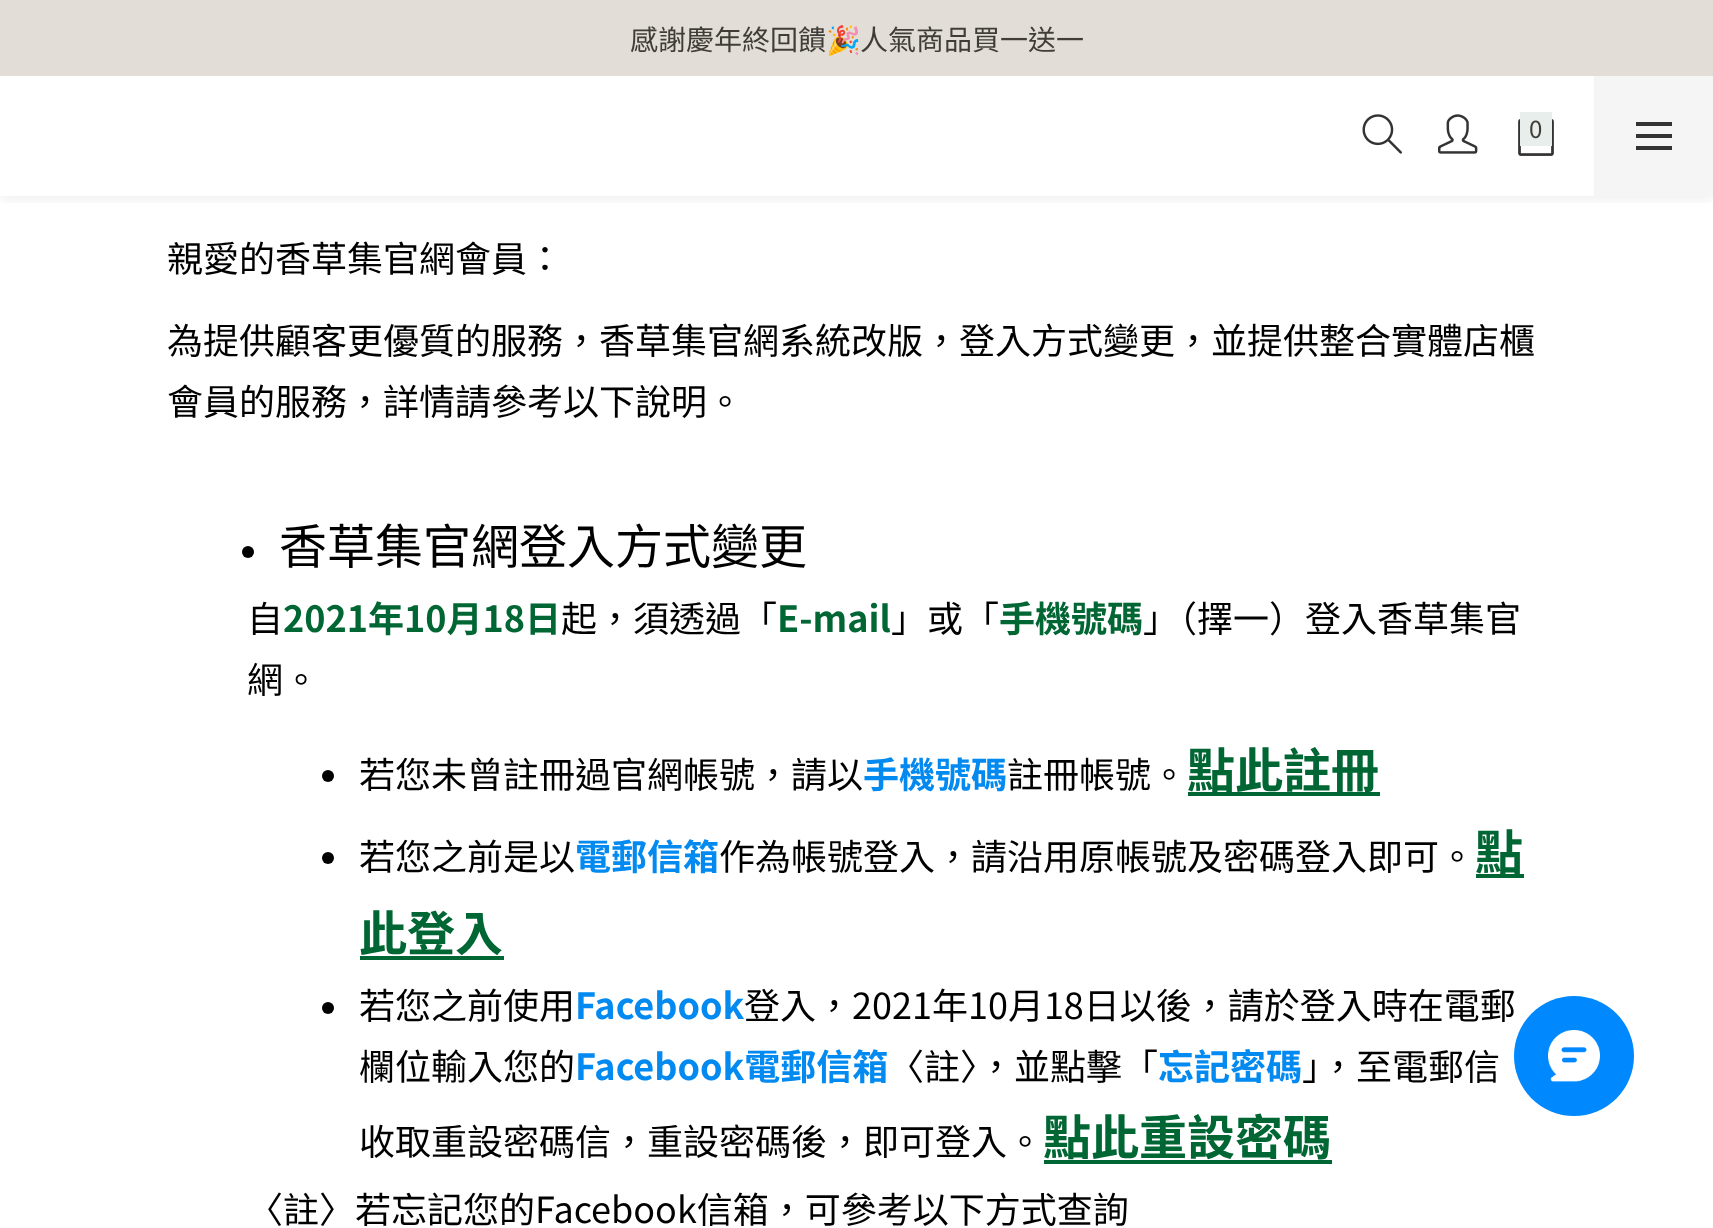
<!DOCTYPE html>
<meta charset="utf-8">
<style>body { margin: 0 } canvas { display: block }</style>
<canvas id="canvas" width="1713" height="1228"></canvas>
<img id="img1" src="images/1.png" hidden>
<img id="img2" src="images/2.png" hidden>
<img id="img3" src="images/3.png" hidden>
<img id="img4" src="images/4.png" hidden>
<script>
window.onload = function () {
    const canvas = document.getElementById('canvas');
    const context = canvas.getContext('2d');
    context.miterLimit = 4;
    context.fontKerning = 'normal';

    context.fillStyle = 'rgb(255, 255, 255)';
    context.fillRect(0, 0, 1713, 1228);
    context.fillStyle = 'rgb(226, 222, 215)';
    context.fillRect(0, 0, 1713, 76);
    context.save();
    context.beginPath();
    context.rect(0, 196, 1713, 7);
    context.clip();
    context.fillStyle = 'rgba(0, 0, 0, 0.06)';
    context.filter = 'blur(6px)';
    context.beginPath();
    context.rect(0, 80, 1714, 120);
    context.fill();
    context.filter = 'none';
    context.restore();
    context.drawImage(document.getElementById('img1'), 1362, 114, 40, 40);
    context.drawImage(document.getElementById('img2'), 1438, 114, 40, 40);
    context.drawImage(document.getElementById('img3'), 1518, 119, 36, 37);
    context.fillStyle = 'rgb(232, 238, 235)';
    context.fillRect(1520, 112, 32, 34);
    context.fillStyle = 'rgb(245, 245, 245)';
    context.fillRect(1594, 76, 119, 120);
    context.fillStyle = 'rgb(51, 51, 51)';
    context.fillRect(1636, 134, 36, 4);
    context.fillRect(1636, 122, 36, 4);
    context.fillRect(1636, 146, 36, 4);
    context.fillStyle = 'rgb(0, 0, 0)';
    context.beginPath();
    context.arc(248, 552, 6, 0, 2 * Math.PI);
    context.fill();
    context.beginPath();
    context.arc(328, 776, 6, 0, 2 * Math.PI);
    context.fill();
    context.fillStyle = 'rgb(0, 102, 51)';
    context.fillRect(1188, 792, 192, 4);
    context.fillStyle = 'rgb(0, 0, 0)';
    context.beginPath();
    context.arc(328, 858, 6, 0, 2 * Math.PI);
    context.fill();
    context.fillStyle = 'rgb(0, 102, 51)';
    context.fillRect(1476, 874, 48, 4);
    context.fillRect(360, 956, 144, 4);
    context.fillStyle = 'rgb(0, 0, 0)';
    context.beginPath();
    context.arc(328, 1008, 6, 0, 2 * Math.PI);
    context.fill();
    context.fillStyle = 'rgb(0, 102, 51)';
    context.fillRect(1044, 1160, 288, 4);
    context.font = '28px Noto Sans TC';
    context.fillStyle = 'rgb(64, 61, 57)';
    context.fillText('感謝慶年終回饋', 630, 50);
    context.font = '28px Noto Color Emoji';
    context.fillText('🎉', 826, 50);
    context.font = '28px Noto Sans TC';
    context.fillText('人氣商品買一送一', 860, 50);
    context.font = '24px Noto Sans TC';
    context.fillText('0', 1529, 138);
    context.font = '36px Noto Sans TC';
    context.fillStyle = 'rgb(0, 0, 0)';
    context.fillText('親愛的香草集官網會員：', 167, 272);
    context.fillText('為提供顧客更優質的服務，香草集官網系統改版，登入方式變更，並提供整合實體店櫃', 167, 354);
    context.fillText('會員的服務，詳情請參考以下說明。', 167, 415);
    context.font = '48px Noto Sans TC';
    context.fillText('香草集官網登入方式變更', 279, 564);
    context.font = '36px Noto Sans TC';
    context.fillText('自', 247, 632);
    context.font = 'bold 36px Noto Sans TC';
    context.fillStyle = 'rgb(0, 102, 51)';
    context.fillText('2021年10月18日', 283, 632);
    context.font = '36px Noto Sans TC';
    context.fillStyle = 'rgb(0, 0, 0)';
    context.fillText('起，須透過「', 561, 632);
    context.font = 'bold 36px Noto Sans TC';
    context.fillStyle = 'rgb(0, 102, 51)';
    context.fillText('E-mail', 777, 632);
    context.font = '36px Noto Sans TC';
    context.fillStyle = 'rgb(0, 0, 0)';
    context.fillText('」或「', 891, 632);
    context.font = 'bold 36px Noto Sans TC';
    context.fillStyle = 'rgb(0, 102, 51)';
    context.fillText('手機號碼', 999, 632);
    context.font = '36px Noto Sans TC';
    context.fillStyle = 'rgb(0, 0, 0)';
    context.fillText('」（擇一）登入香草集官', 1143, 632);
    context.fillText('網。', 247, 693);
    context.fillText('若您未曾註冊過官網帳號，請以', 359, 788);
    context.font = 'bold 36px Noto Sans TC';
    context.fillStyle = 'rgb(3, 138, 240)';
    context.fillText('手機號碼', 863, 788);
    context.font = '36px Noto Sans TC';
    context.fillStyle = 'rgb(0, 0, 0)';
    context.fillText('註冊帳號。', 1007, 788);
    context.font = 'bold 48px Noto Sans TC';
    context.fillStyle = 'rgb(0, 102, 51)';
    context.fillText('點此註冊', 1187, 788);
    context.font = '36px Noto Sans TC';
    context.fillStyle = 'rgb(0, 0, 0)';
    context.fillText('若您之前是以', 359, 870);
    context.font = 'bold 36px Noto Sans TC';
    context.fillStyle = 'rgb(3, 138, 240)';
    context.fillText('電郵信箱', 575, 870);
    context.font = '36px Noto Sans TC';
    context.fillStyle = 'rgb(0, 0, 0)';
    context.fillText('作為帳號登入，請沿用原帳號及密碼登入即可。', 719, 870);
    context.font = 'bold 48px Noto Sans TC';
    context.fillStyle = 'rgb(0, 102, 51)';
    context.fillText('點', 1475, 870);
    context.fillText('此登入', 359, 951);
    context.font = '36px Noto Sans TC';
    context.fillStyle = 'rgb(0, 0, 0)';
    context.fillText('若您之前使用', 359, 1019);
    context.font = 'bold 36px Noto Sans TC';
    context.fillStyle = 'rgb(3, 138, 240)';
    context.fillText('Facebook', 575, 1019);
    context.font = '36px Noto Sans TC';
    context.fillStyle = 'rgb(0, 0, 0)';
    context.fillText('登入，2021年10月18日以後，請於登入時在電郵', 744, 1019);
    context.fillText('欄位輸入您的', 359, 1080);
    context.font = 'bold 36px Noto Sans TC';
    context.fillStyle = 'rgb(3, 138, 240)';
    context.fillText('Facebook電郵信箱', 575, 1080);
    context.font = '36px Noto Sans TC';
    context.fillStyle = 'rgb(0, 0, 0)';
    context.fillText('〈註〉，並點擊「', 888, 1080);
    context.font = 'bold 36px Noto Sans TC';
    context.fillStyle = 'rgb(3, 138, 240)';
    context.fillText('忘記密碼', 1158, 1080);
    context.font = '36px Noto Sans TC';
    context.fillStyle = 'rgb(0, 0, 0)';
    context.fillText('」，至電郵信', 1302, 1080);
    context.fillText('收取重設密碼信，重設密碼後，即可登入。', 359, 1155);
    context.font = 'bold 48px Noto Sans TC';
    context.fillStyle = 'rgb(0, 102, 51)';
    context.fillText('點此重設密碼', 1043, 1155);
    context.font = '36px Noto Sans TC';
    context.fillStyle = 'rgb(0, 0, 0)';
    context.fillText('〈註〉若忘記您的Facebook信箱，可參考以下方式查詢', 247, 1223);
    context.fillStyle = 'rgb(0, 136, 254)';
    context.beginPath();
    context.arc(1574, 1056, 60, 0, 2 * Math.PI);
    context.fill();
    context.drawImage(document.getElementById('img4'), 1548, 1030, 52, 52);
};
</script>
